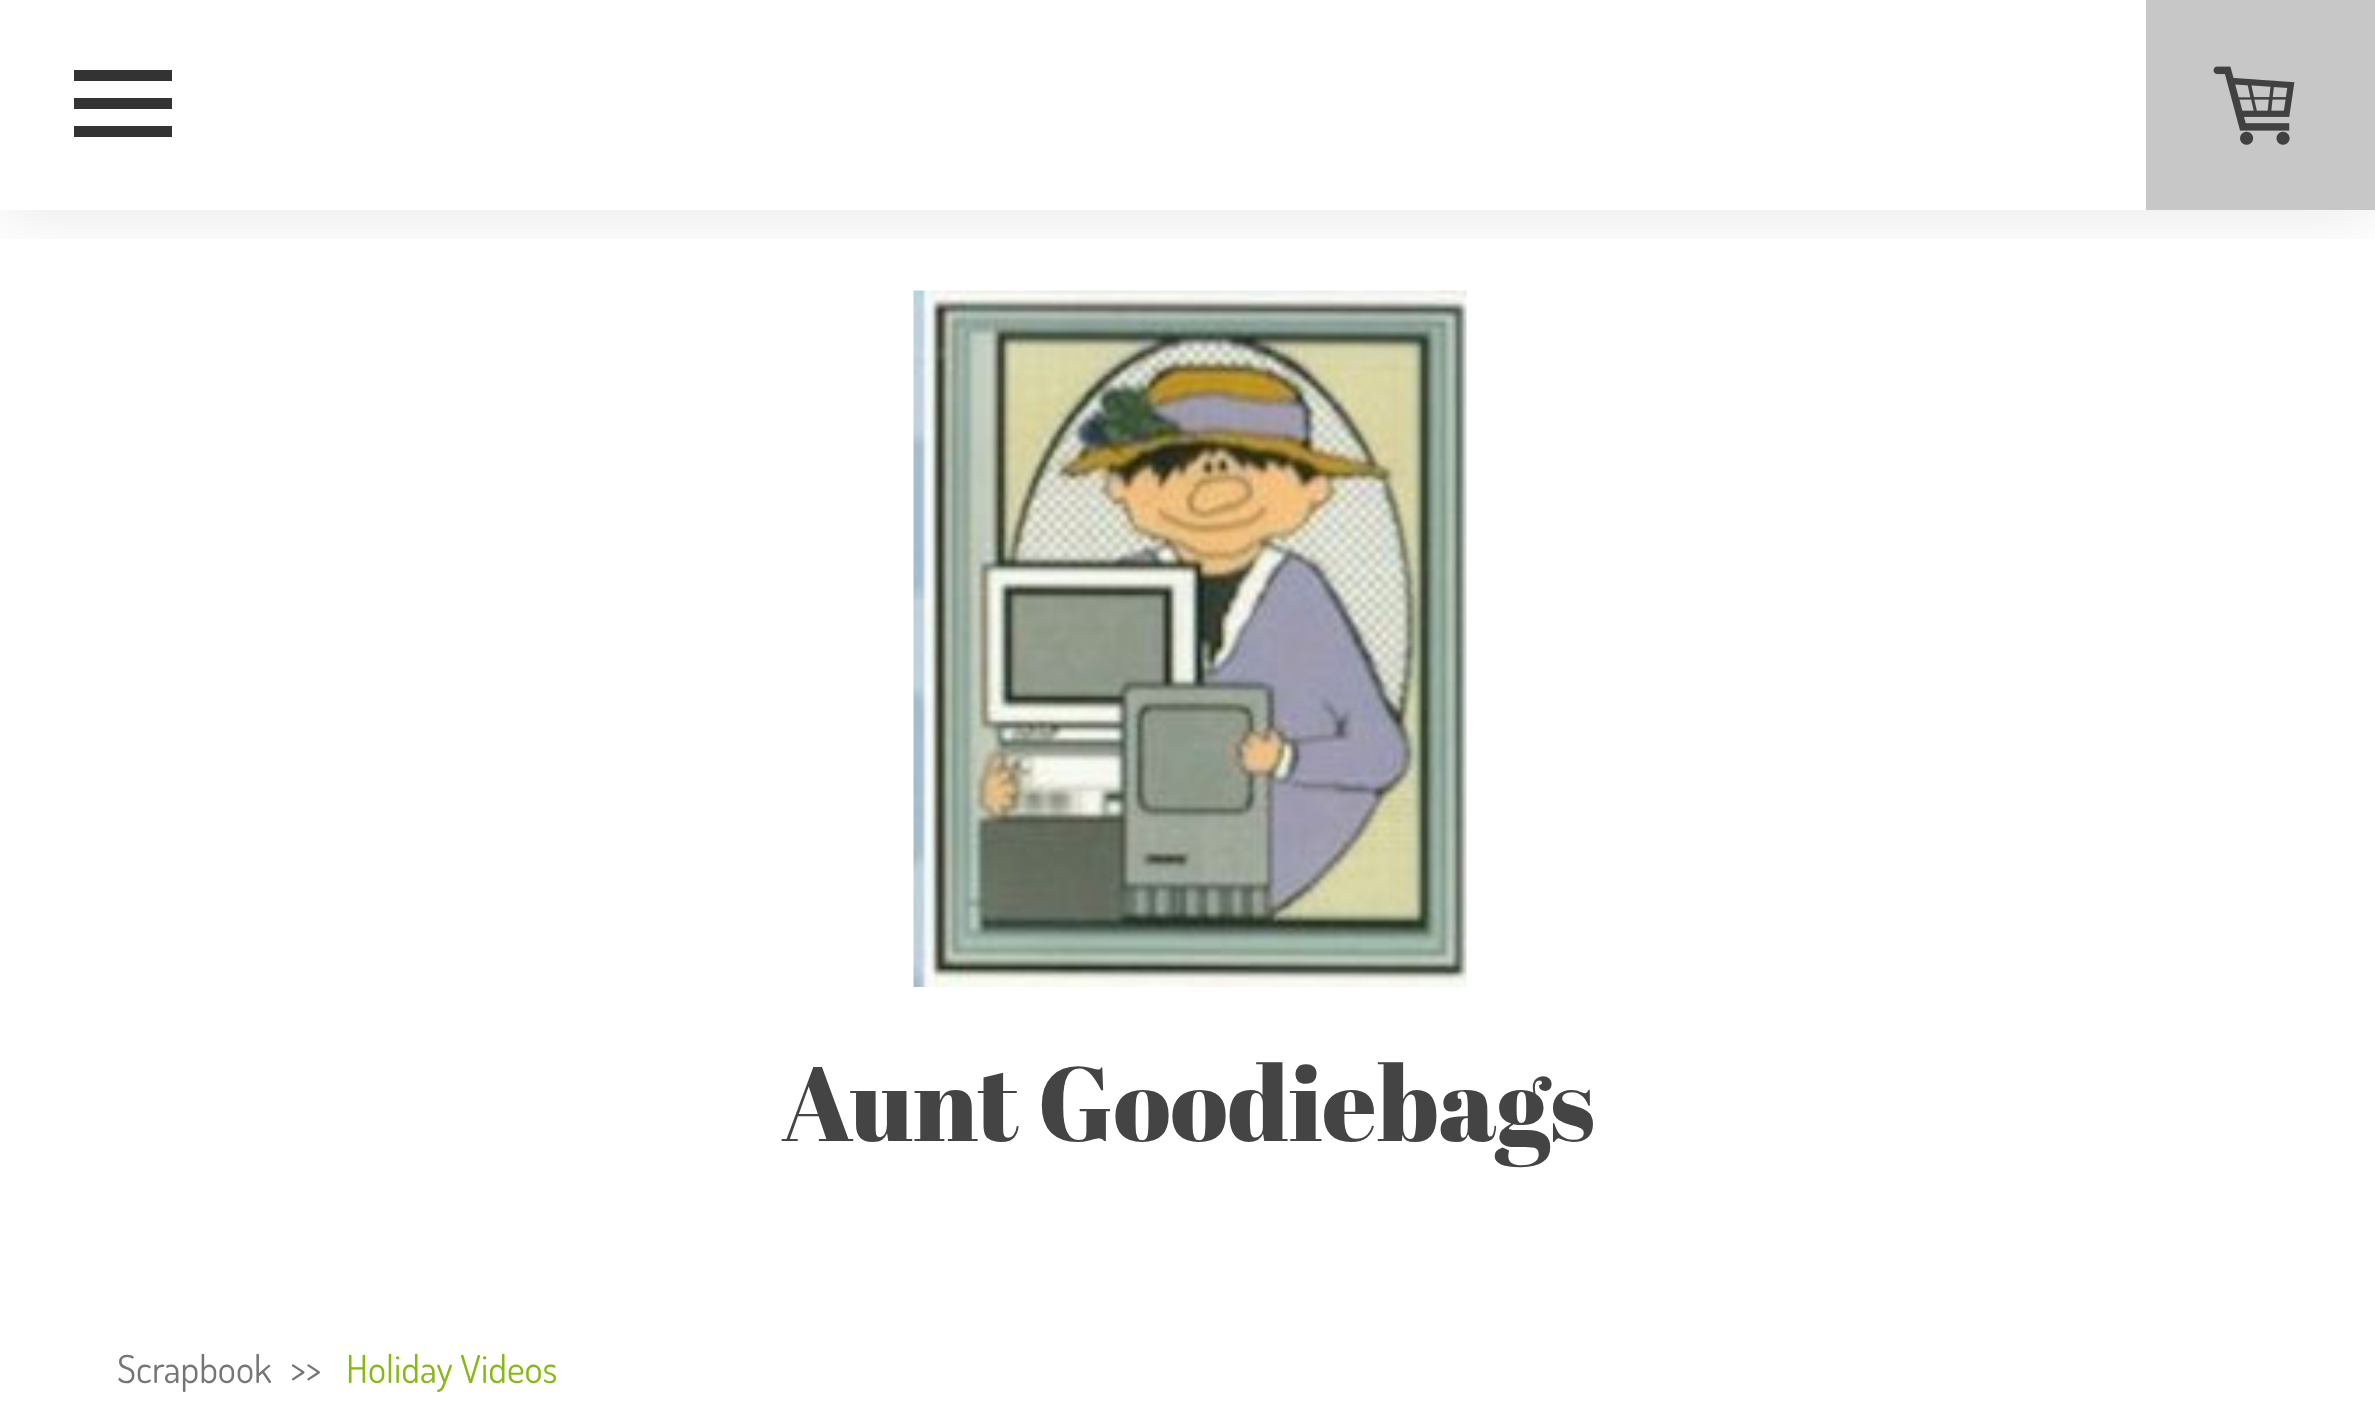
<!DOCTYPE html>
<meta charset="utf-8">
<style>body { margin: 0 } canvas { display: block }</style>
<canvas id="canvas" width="2375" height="1408"></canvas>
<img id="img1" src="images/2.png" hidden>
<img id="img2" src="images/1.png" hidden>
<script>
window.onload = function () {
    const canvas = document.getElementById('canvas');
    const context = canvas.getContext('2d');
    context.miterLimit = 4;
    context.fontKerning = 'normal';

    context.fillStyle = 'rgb(255, 255, 255)';
    context.fillRect(0, 0, 2375, 1408);
    context.drawImage(document.getElementById('img1'), 913, 290, 554, 697);
    context.save();
    context.beginPath();
    context.rect(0, 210, 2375, 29);
    context.clip();
    context.fillStyle = 'rgba(0, 0, 0, 0.1)';
    context.filter = 'blur(35px)';
    context.beginPath();
    context.rect(0, 0, 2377, 210);
    context.fill();
    context.filter = 'none';
    context.restore();
    context.fillStyle = 'rgb(51, 51, 51)';
    context.fillRect(74, 98, 98, 11);
    context.fillRect(74, 70, 98, 11);
    context.fillRect(74, 126, 98, 11);
    context.fillStyle = 'rgb(199, 199, 199)';
    context.fillRect(2146, 0, 229, 210);
    context.drawImage(document.getElementById('img2'), 2213, 66, 82, 79);
    context.font = '105px Abril Fatface';
    context.fillStyle = 'rgb(68, 68, 68)';
    context.fillText('Aunt Goodiebags', 781, 1141);
    context.font = '38.5px Dosis';
    context.fillStyle = 'rgb(117, 117, 117)';
    context.fillText('Scrapbook', 117, 1383);
    context.fillText('>>', 290, 1383);
    context.fillStyle = 'rgb(136, 185, 19)';
    context.fillText('Holiday Videos', 346, 1383);
};
</script>
